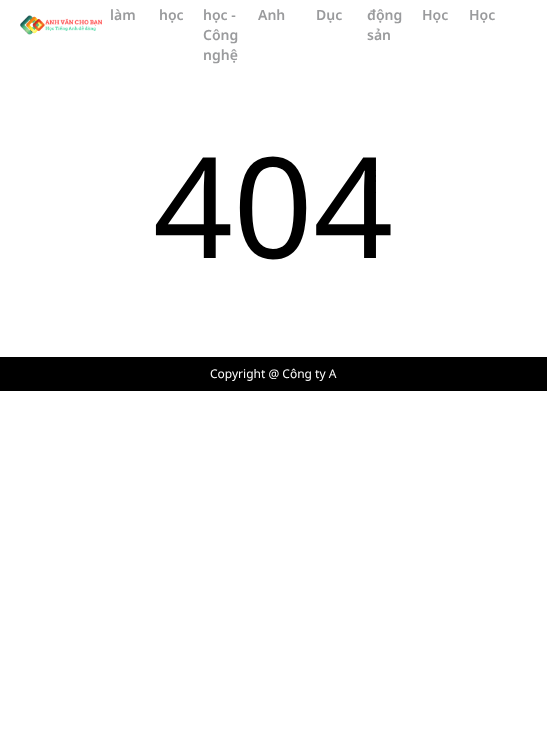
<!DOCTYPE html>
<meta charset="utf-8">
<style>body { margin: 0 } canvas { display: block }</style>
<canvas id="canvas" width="547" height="733"></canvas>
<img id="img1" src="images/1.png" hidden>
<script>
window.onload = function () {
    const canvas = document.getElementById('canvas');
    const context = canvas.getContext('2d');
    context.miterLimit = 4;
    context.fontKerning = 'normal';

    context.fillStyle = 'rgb(255, 255, 255)';
    context.fillRect(0, 0, 547, 733);
    context.drawImage(document.getElementById('img1'), 20, 15, 82, 20);
    context.fillStyle = 'rgb(0, 0, 0)';
    context.fillRect(0, 357, 547, 34);
    context.font = '600 14px Noto Sans';
    context.fillStyle = 'rgb(154, 155, 157)';
    context.fillText('làm', 110, 20);
    context.fillText('học', 159, 20);
    context.fillText('học -', 203, 20);
    context.fillText('Công', 203, 40);
    context.fillText('nghệ', 203, 60);
    context.fillText('Anh', 258, 20);
    context.fillText('Dục', 316, 20);
    context.fillText('động', 367, 20);
    context.fillText('sản', 367, 40);
    context.fillText('Học', 422, 20);
    context.fillText('Học', 469, 20);
    context.font = '140px Noto Sans';
    context.fillStyle = 'rgb(0, 0, 0)';
    context.fillText('404', 153, 258);
    context.font = '12px Noto Sans';
    context.fillStyle = 'rgb(255, 255, 255)';
    context.fillText('Copyright @ Công ty A', 210, 378);
};
</script>
